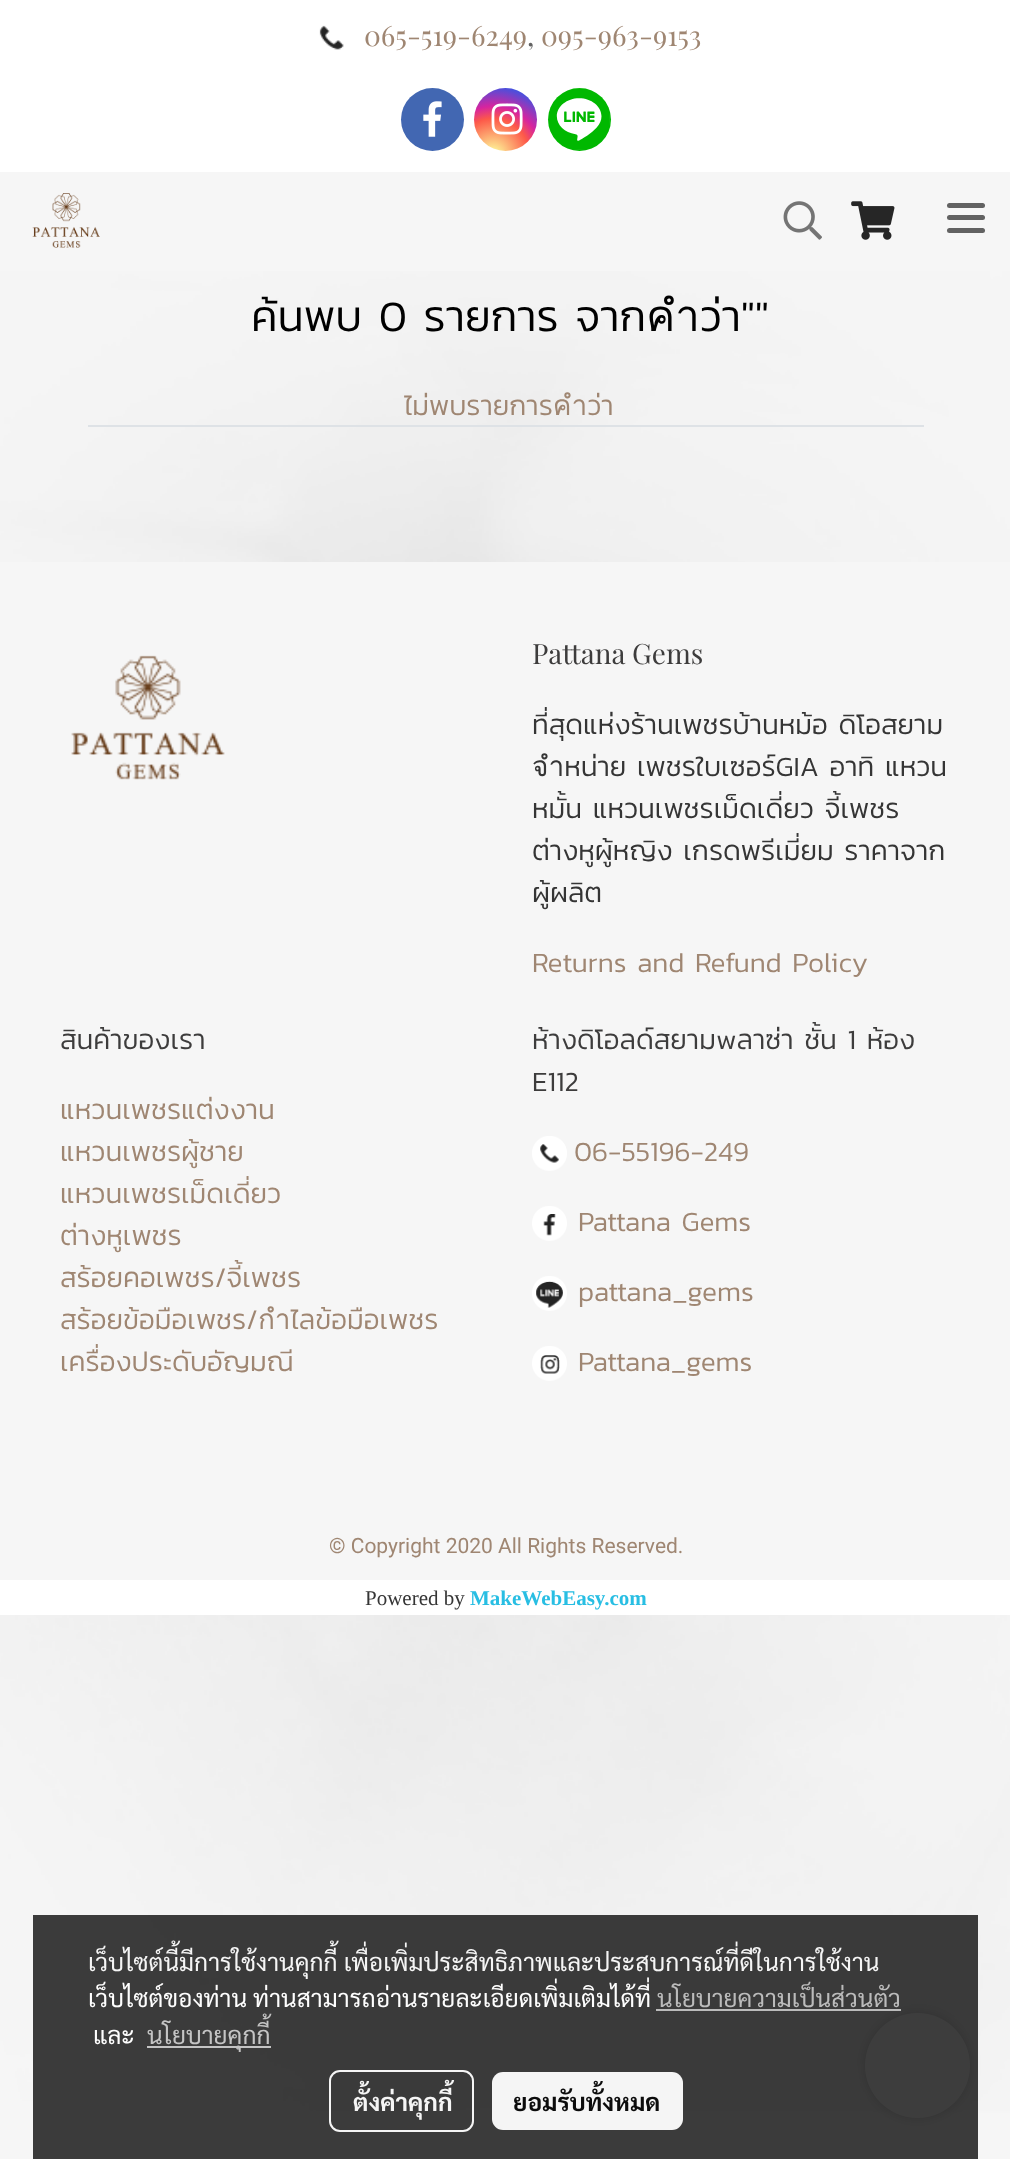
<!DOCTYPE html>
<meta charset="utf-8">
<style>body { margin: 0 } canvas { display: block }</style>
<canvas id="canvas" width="1010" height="2159"></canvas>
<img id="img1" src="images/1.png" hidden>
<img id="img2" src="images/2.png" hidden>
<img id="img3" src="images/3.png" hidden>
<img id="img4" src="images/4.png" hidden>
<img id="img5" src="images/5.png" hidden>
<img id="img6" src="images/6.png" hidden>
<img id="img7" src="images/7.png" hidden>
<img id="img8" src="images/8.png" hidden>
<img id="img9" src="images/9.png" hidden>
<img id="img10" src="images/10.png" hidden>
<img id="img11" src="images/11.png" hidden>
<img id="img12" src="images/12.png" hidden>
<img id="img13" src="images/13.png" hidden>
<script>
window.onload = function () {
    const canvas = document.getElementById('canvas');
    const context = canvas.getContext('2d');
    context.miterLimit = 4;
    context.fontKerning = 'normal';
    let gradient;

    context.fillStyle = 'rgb(255, 255, 255)';
    context.fillRect(0, 0, 1010, 2159);
    context.drawImage(document.getElementById('img1'), 0, 271, 1010, 1888);
    context.fillStyle = 'rgb(246, 246, 246)';
    context.fillRect(0, 172, 1010, 99);
    context.drawImage(document.getElementById('img2'), 319, 25, 25, 25);
    context.fillStyle = 'rgb(66, 103, 178)';
    context.beginPath();
    context.arc(432.5, 119.5, 31.5, 0, 2 * Math.PI);
    context.fill();
    context.drawImage(document.getElementById('img3'), 423, 101, 19, 36);
    gradient = context.createRadialGradient(493, 155, 0, 493, 155, 81);
    gradient.addColorStop(0, 'rgb(253, 244, 151)');
    gradient.addColorStop(0.05, 'rgb(253, 244, 151)');
    gradient.addColorStop(0.45, 'rgb(253, 89, 73)');
    gradient.addColorStop(0.6, 'rgb(214, 36, 159)');
    gradient.addColorStop(0.9, 'rgb(40, 90, 235)');
    context.fillStyle = gradient;
    context.beginPath();
    context.arc(505.5, 119.5, 31.5, 0, 2 * Math.PI);
    context.fill();
    context.drawImage(document.getElementById('img4'), 491, 103, 32, 32);
    context.fillStyle = 'rgb(0, 184, 0)';
    context.beginPath();
    context.arc(579.5, 119.5, 31.5, 0, 2 * Math.PI);
    context.fill();
    context.drawImage(document.getElementById('img5'), 548, 88, 62, 62);
    context.drawImage(document.getElementById('img6'), 32, 193, 68, 55);
    context.drawImage(document.getElementById('img7'), 783, 201, 39, 39);
    context.drawImage(document.getElementById('img8'), 851, 201, 44, 39);
    context.fillStyle = 'rgb(98, 98, 98)';
    context.beginPath();
    context.roundRect(947, 215, 38, 5, 2.5);
    context.fill();
    context.beginPath();
    context.roundRect(947, 203, 38, 5, 2.5);
    context.fill();
    context.beginPath();
    context.roundRect(947, 228, 38, 5, 2.5);
    context.fill();
    context.fillStyle = 'rgb(222, 226, 230)';
    context.fillRect(88, 425, 836, 2);
    context.fillStyle = 'rgb(246, 246, 246)';
    context.fillRect(0, 562, 1010, 1018);
    context.drawImage(document.getElementById('img9'), 71, 655, 154, 125);
    context.drawImage(document.getElementById('img10'), 532, 1136, 35, 35);
    context.drawImage(document.getElementById('img11'), 532, 1206, 35, 35);
    context.drawImage(document.getElementById('img12'), 532, 1276, 35, 35);
    context.drawImage(document.getElementById('img13'), 532, 1346, 35, 35);
    context.fillStyle = 'rgb(255, 255, 255)';
    context.fillRect(0, 1580, 1010, 35);
    context.fillStyle = 'rgba(0, 0, 0, 0.14)';
    context.filter = 'blur(6px)';
    context.beginPath();
    context.roundRect(865, 2013, 105, 105, 52.5);
    context.fill();
    context.filter = 'none';
    context.fillStyle = 'rgb(255, 255, 255)';
    context.beginPath();
    context.arc(917.5, 2065.5, 52.5, 0, 2 * Math.PI);
    context.fill();
    context.fillStyle = 'rgba(0, 0, 0, 0.76)';
    context.fillRect(33, 1915, 945, 244);
    context.fillStyle = 'rgb(187, 187, 187)';
    context.fillRect(656, 2009, 245, 2);
    context.fillStyle = 'rgb(196, 196, 196)';
    context.fillRect(147, 2046, 124, 2);
    context.beginPath();
    context.roundRect(330, 2071, 143, 60, 10);
    context.strokeStyle = 'rgb(245, 245, 245)';
    context.lineWidth = 2;
    context.stroke();
    context.fillStyle = 'rgb(245, 245, 245)';
    context.beginPath();
    context.roundRect(492, 2072, 191, 58, 11);
    context.fill();
    context.font = '28px Playfair Display';
    context.fillStyle = 'rgb(159, 134, 114)';
    context.fillText('065-519-6249', 364, 46);
    context.fillStyle = 'rgb(98, 98, 98)';
    context.fillText(',', 527, 46);
    context.fillStyle = 'rgb(159, 134, 114)';
    context.fillText('095-963-9153', 541, 46);
    context.font = '300 43.75px Kanit';
    context.fillStyle = 'rgb(0, 0, 0)';
    context.fillText('ค้นพบ 0 รายการ จากคำว่า""', 251, 331);
    context.font = '300 28px Kanit';
    context.fillStyle = 'rgb(159, 134, 114)';
    context.fillText('ไม่พบรายการคำว่า', 404, 415);
    context.font = '28px Playfair Display';
    context.fillStyle = 'rgb(61, 60, 60)';
    context.fillText('Pattana Gems', 532, 664);
    context.font = '300 28px Kanit';
    context.fillStyle = 'rgb(53, 53, 53)';
    context.fillText('ที่สุดแห่งร้านเพชรบ้านหม้อ ดิโอสยาม', 532, 734);
    context.fillText('จำหน่าย เพชรใบเซอร์GIA อาทิ แหวน', 532, 776);
    context.fillText('หมั้น แหวนเพชรเม็ดเดี่ยว จี้เพชร', 532, 818);
    context.fillText('ต่างหูผู้หญิง เกรดพรีเมี่ยม ราคาจาก', 532, 860);
    context.fillText('ผู้ผลิต', 532, 902);
    context.fillStyle = 'rgb(159, 134, 114)';
    context.fillText('Returns and Refund Policy', 532, 972);
    context.fillStyle = 'rgb(61, 60, 60)';
    context.fillText('สินค้าของเรา', 60, 1049);
    context.fillStyle = 'rgb(159, 134, 114)';
    context.fillText('แหวนเพชรแต่งงาน', 60, 1119);
    context.fillText('แหวนเพชรผู้ชาย', 60, 1161);
    context.fillText('แหวนเพชรเม็ดเดี่ยว', 60, 1203);
    context.fillText('ต่างหูเพชร', 60, 1245);
    context.fillText('สร้อยคอเพชร/จี้เพชร', 60, 1287);
    context.fillText('สร้อยข้อมือเพชร/กำไลข้อมือเพชร', 60, 1329);
    context.fillText('เครื่องประดับอัญมณี', 60, 1371);
    context.fillStyle = 'rgb(61, 60, 60)';
    context.fillText('ห้างดิโอลด์สยามwลาซ่า ชั้น 1 ห้อง', 532, 1049);
    context.fillText('E112', 532, 1091);
    context.fillStyle = 'rgb(159, 134, 114)';
    context.fillText('06-55196-249', 574, 1161);
    context.fillText('Pattana Gems', 578, 1231);
    context.fillText('pattana_gems', 578, 1301);
    context.fillText('Pattana_gems', 578, 1371);
    context.font = '21px Roboto';
    context.fillText('© Copyright 2020 All Rights Reserved.', 329, 1553);
    context.font = '21px Liberation Serif';
    context.fillStyle = 'rgb(53, 53, 53)';
    context.fillText('Powered by', 365, 1605);
    context.font = 'bold 21px Liberation Serif';
    context.fillStyle = 'rgb(40, 190, 227)';
    context.fillText('MakeWebEasy.com', 470, 1605);
    context.font = '24.5px Sarabun';
    context.fillStyle = 'rgb(245, 245, 245)';
    context.fillText('เว็บไซต์นี้มีการใช้งานคุกกี้ เพื่อเพิ่มประสิทธิภาพและประสบการณ์ที่ดีในการใช้งาน', 88, 1971);
    context.fillStyle = 'rgb(254, 254, 254)';
    context.fillText('เว็บไซต์ของท่าน ท่านสามารถอ่านรายละเอียดเพิ่มเติมได้ที่', 88, 2007);
    context.fillStyle = 'rgb(187, 187, 187)';
    context.fillText('นโยบายความเป็นส่วนตัว', 657, 2007);
    context.fillStyle = 'rgb(254, 254, 254)';
    context.fillText('และ', 93, 2044);
    context.fillStyle = 'rgb(196, 196, 196)';
    context.fillText('นโยบายคุกกี้', 147, 2044);
    context.font = 'bold 24.5px Sarabun';
    context.fillStyle = 'rgb(245, 245, 245)';
    context.fillText('ตั้งค่าคุกกี้', 353, 2111);
    context.fillStyle = 'rgb(12, 12, 12)';
    context.fillText('ยอมรับทั้งหมด', 513, 2111);
};
</script>
